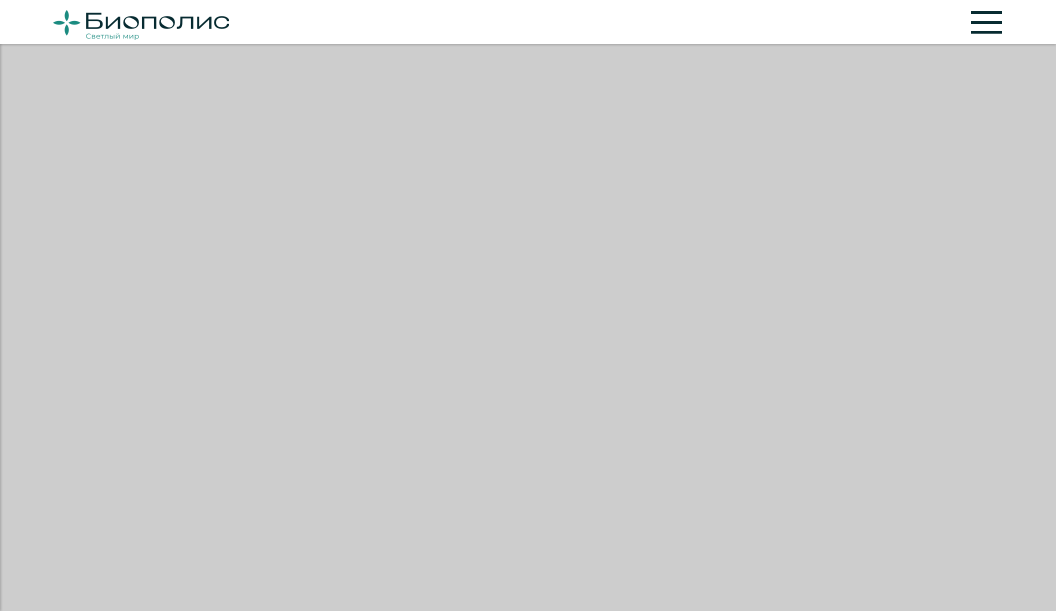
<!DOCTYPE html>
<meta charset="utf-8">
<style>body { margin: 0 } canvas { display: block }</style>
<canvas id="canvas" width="1056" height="611"></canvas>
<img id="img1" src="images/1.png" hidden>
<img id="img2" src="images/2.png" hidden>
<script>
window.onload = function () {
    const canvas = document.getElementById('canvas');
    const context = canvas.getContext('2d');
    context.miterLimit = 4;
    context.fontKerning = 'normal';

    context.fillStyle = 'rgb(205, 205, 205)';
    context.fillRect(0, 0, 1056, 611);
    context.fillStyle = 'rgba(0, 0, 0, 0.2)';
    context.filter = 'blur(1px)';
    context.beginPath();
    context.rect(-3, 0, 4, 611);
    context.fill();
    context.filter = 'none';
    context.filter = 'blur(1px)';
    context.beginPath();
    context.rect(0, 1, 1056, 44);
    context.fill();
    context.filter = 'none';
    context.fillStyle = 'rgb(255, 255, 255)';
    context.fillRect(0, 0, 1056, 44);
    context.drawImage(document.getElementById('img1'), 53, 10, 176, 30);
    context.drawImage(document.getElementById('img2'), 971, 11, 31, 23);
};
</script>
